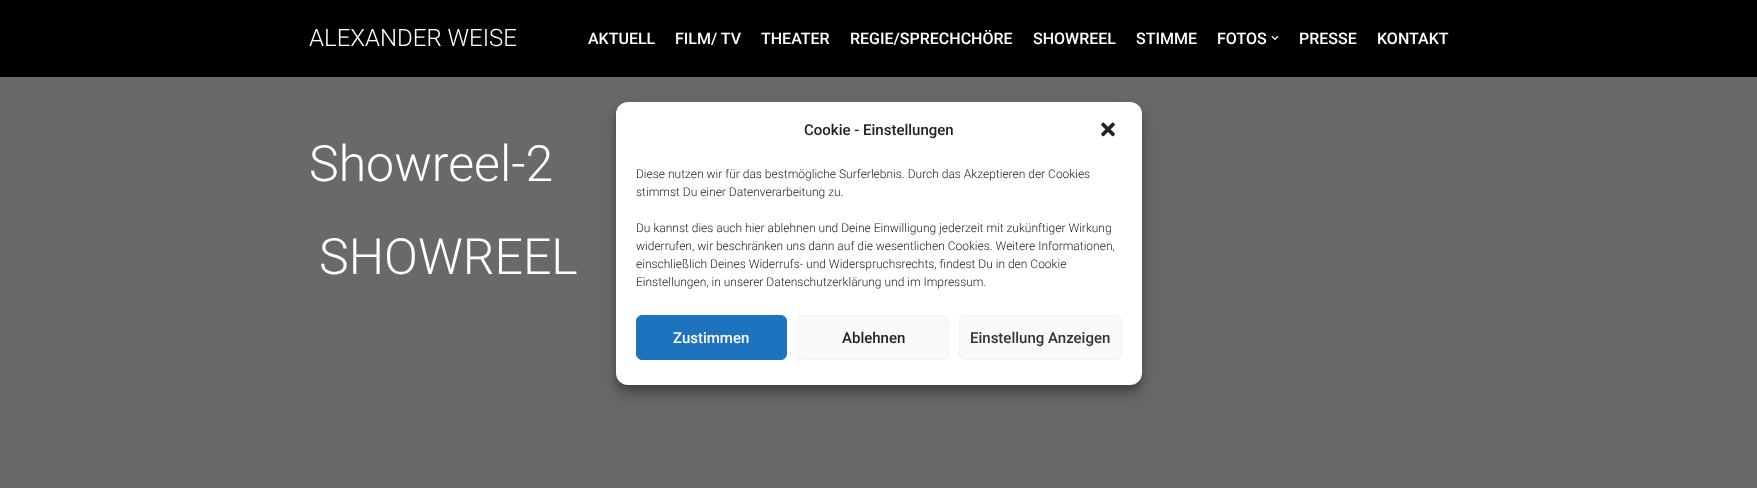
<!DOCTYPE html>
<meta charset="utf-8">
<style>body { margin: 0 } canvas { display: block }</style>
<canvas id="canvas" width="1757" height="488"></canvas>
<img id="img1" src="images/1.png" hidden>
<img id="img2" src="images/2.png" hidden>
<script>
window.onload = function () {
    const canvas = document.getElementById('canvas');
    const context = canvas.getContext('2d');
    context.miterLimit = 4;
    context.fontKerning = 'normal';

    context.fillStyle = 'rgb(105, 105, 105)';
    context.fillRect(0, 0, 1757, 488);
    context.fillStyle = 'rgb(0, 0, 0)';
    context.fillRect(0, 0, 1757, 77);
    context.drawImage(document.getElementById('img1'), 1271, 36, 8, 4);
    context.fillStyle = 'rgba(0, 0, 0, 0.23)';
    context.filter = 'blur(3px)';
    context.beginPath();
    context.roundRect(616, 108, 526, 283, 12);
    context.fill();
    context.filter = 'none';
    context.fillStyle = 'rgba(0, 0, 0, 0.19)';
    context.filter = 'blur(10px)';
    context.beginPath();
    context.roundRect(616, 112, 526, 283, 12);
    context.fill();
    context.filter = 'none';
    context.fillStyle = 'rgb(255, 255, 255)';
    context.beginPath();
    context.roundRect(616, 102, 526, 283, 12);
    context.fill();
    context.drawImage(document.getElementById('img2'), 1101, 122, 14, 15);
    context.fillStyle = 'rgb(30, 115, 190)';
    context.beginPath();
    context.roundRect(636.5, 315.5, 150, 44, 5.5);
    context.fill();
    context.strokeStyle = 'rgb(30, 115, 190)';
    context.stroke();
    context.fillStyle = 'rgb(249, 249, 249)';
    context.beginPath();
    context.roundRect(797.5, 315.5, 151, 44, 5.5);
    context.fill();
    context.strokeStyle = 'rgb(242, 242, 242)';
    context.stroke();
    context.beginPath();
    context.roundRect(959.5, 315.5, 162, 44, 5.5);
    context.fill();
    context.stroke();
    context.font = '300 24px Roboto';
    context.fillStyle = 'rgb(255, 255, 255)';
    context.fillText('ALEXANDER WEISE', 309, 46);
    context.font = '500 16px Roboto';
    context.fillText('AKTUELL', 588, 44);
    context.fillText('FILM/ TV', 675, 44);
    context.fillText('THEATER', 761, 44);
    context.fillText('REGIE/SPRECHCHÖRE', 850, 44);
    context.fillText('SHOWREEL', 1033, 44);
    context.fillText('STIMME', 1136, 44);
    context.fillText('FOTOS', 1217, 44);
    context.fillText('PRESSE', 1299, 44);
    context.fillText('KONTAKT', 1377, 44);
    context.font = '300 50px Roboto';
    context.fillText('Showreel-2', 309, 181);
    context.fillText('SHOWREEL', 319, 274);
    context.font = '500 15px Roboto';
    context.fillStyle = 'rgb(34, 34, 34)';
    context.fillText('Cookie - Einstellungen', 804, 135);
    context.font = '300 12px Roboto';
    context.fillText('Diese nutzen wir für das bestmögliche Surferlebnis. Durch das Akzeptieren der Cookies', 636, 178);
    context.fillText('stimmst Du einer Datenverarbeitung zu.', 636, 196);
    context.fillText('Du kannst dies auch hier ablehnen und Deine Einwilligung jederzeit mit zukünftiger Wirkung', 636, 232);
    context.fillText('widerrufen, wir beschränken uns dann auf die wesentlichen Cookies. Weitere Informationen,', 636, 250);
    context.fillText('einschließlich Deines Widerrufs- und Widerspruchsrechts, findest Du in den Cookie', 636, 268);
    context.fillText('Einstellungen, in unserer Datenschutzerklärung und im Impressum.', 636, 286);
    context.font = '500 15px Roboto';
    context.fillStyle = 'rgb(255, 255, 255)';
    context.fillText('Zustimmen', 673, 343);
    context.fillStyle = 'rgb(34, 34, 34)';
    context.fillText('Ablehnen', 842, 343);
    context.fillStyle = 'rgb(51, 51, 51)';
    context.fillText('Einstellung Anzeigen', 970, 343);
};
</script>
